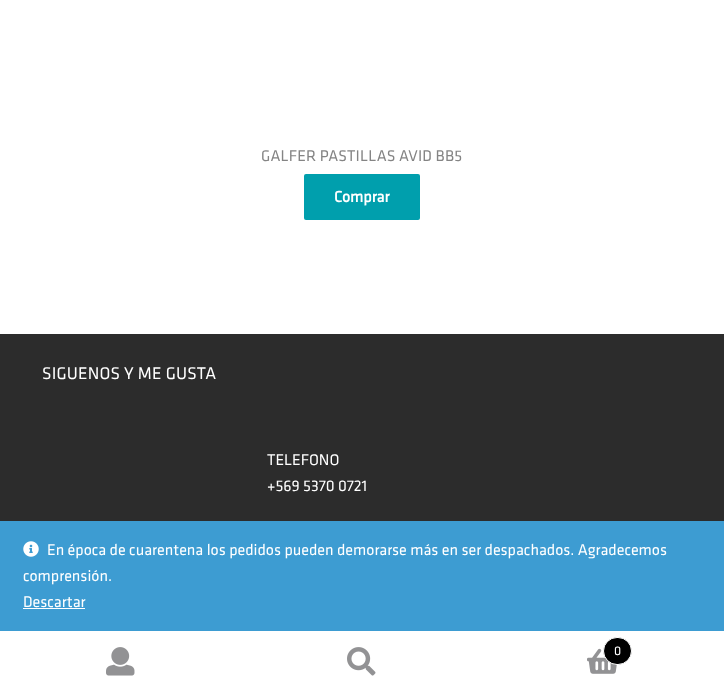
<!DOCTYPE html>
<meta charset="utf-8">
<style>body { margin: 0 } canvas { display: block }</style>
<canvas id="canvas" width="724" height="700"></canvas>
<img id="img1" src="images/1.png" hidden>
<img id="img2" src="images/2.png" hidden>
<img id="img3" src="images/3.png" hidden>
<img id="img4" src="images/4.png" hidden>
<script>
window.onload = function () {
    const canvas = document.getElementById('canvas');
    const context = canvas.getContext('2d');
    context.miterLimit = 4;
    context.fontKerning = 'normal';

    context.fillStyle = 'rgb(255, 255, 255)';
    context.fillRect(0, 0, 724, 700);
    context.fillStyle = 'rgb(0, 159, 173)';
    context.beginPath();
    context.roundRect(304, 174, 116, 46, 2);
    context.fill();
    context.fillStyle = 'rgb(44, 44, 44)';
    context.fillRect(0, 334, 724, 187);
    context.drawImage(document.getElementById('img1'), 106, 647, 29, 29);
    context.drawImage(document.getElementById('img2'), 347, 647, 29, 29);
    context.drawImage(document.getElementById('img3'), 587, 648, 30, 26);
    context.fillStyle = 'rgb(0, 0, 0)';
    context.beginPath();
    context.roundRect(603.5, 637.5, 28, 27, 13.5);
    context.fill();
    context.strokeStyle = 'rgb(255, 255, 255)';
    context.stroke();
    context.fillStyle = 'rgb(61, 156, 210)';
    context.fillRect(0, 521, 724, 110);
    context.drawImage(document.getElementById('img4'), 23, 541, 16, 16);
    context.fillStyle = 'rgb(255, 255, 255)';
    context.fillRect(23, 608, 62, 1);
    context.letterSpacing = '0.15px';
    context.font = '16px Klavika';
    context.fillStyle = 'rgb(132, 132, 132)';
    context.fillText('GALFER PASTILLAS AVID BB5', 261, 161);
    context.letterSpacing = '0px';
    context.font = 'bold 16px Klavika';
    context.fillStyle = 'rgb(255, 255, 255)';
    context.fillText('Comprar', 334, 202);
    context.letterSpacing = '0.2px';
    context.font = '17.5px Klavika';
    context.fillText('SIGUENOS Y ME GUSTA', 42, 379);
    context.letterSpacing = '0px';
    context.font = '16px Klavika';
    context.fillText('TELEFONO', 267, 465);
    context.fillText('+569 5370 0721', 267, 491);
    context.font = '13px Klavika';
    context.fillText('0', 614, 655);
    context.font = '16px Klavika';
    context.fillText('En época de cuarentena los pedidos pueden demorarse más en ser despachados. Agradecemos', 47, 555);
    context.fillText('comprensión.', 23, 581);
    context.fillText('Descartar', 23, 607);
};
</script>
